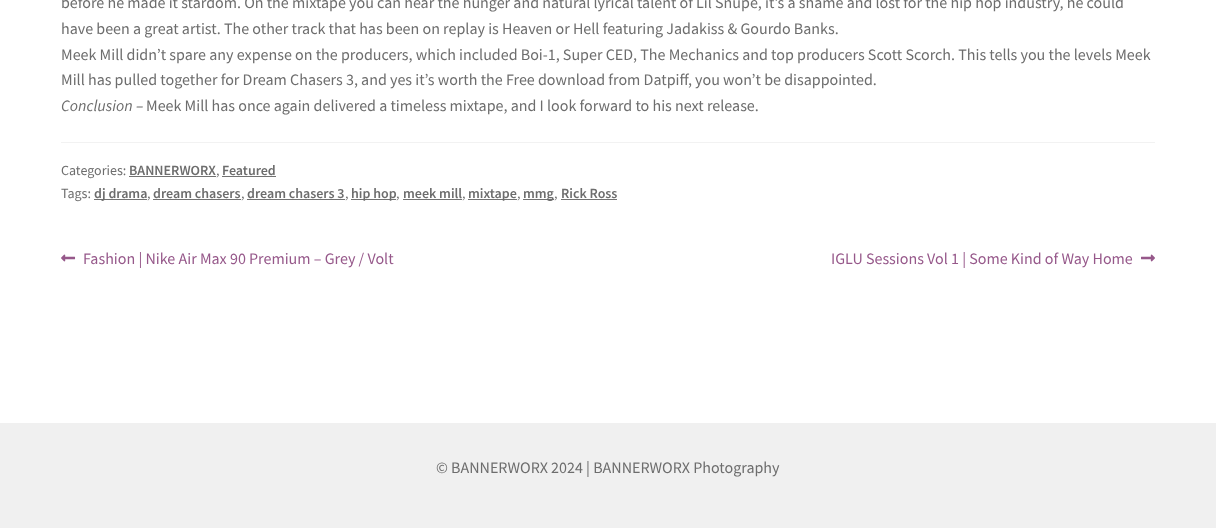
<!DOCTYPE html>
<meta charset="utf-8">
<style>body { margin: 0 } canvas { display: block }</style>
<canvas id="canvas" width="1216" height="528"></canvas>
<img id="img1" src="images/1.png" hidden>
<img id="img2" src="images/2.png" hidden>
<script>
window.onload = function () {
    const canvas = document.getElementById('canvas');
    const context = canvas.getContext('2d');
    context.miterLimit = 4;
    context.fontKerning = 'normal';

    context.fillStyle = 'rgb(255, 255, 255)';
    context.fillRect(0, 0, 1216, 528);
    context.fillStyle = 'rgb(242, 242, 242)';
    context.fillRect(61, 142, 1094, 1);
    context.fillStyle = 'rgb(114, 114, 114)';
    context.fillRect(129, 176, 87, 1);
    context.fillRect(222, 176, 54, 1);
    context.fillRect(94, 199, 53, 1);
    context.fillRect(153, 199, 88, 1);
    context.fillRect(247, 199, 98, 1);
    context.fillRect(351, 199, 45, 1);
    context.fillRect(403, 199, 59, 1);
    context.fillRect(468, 199, 49, 1);
    context.fillRect(523, 199, 31, 1);
    context.fillRect(561, 199, 56, 1);
    context.drawImage(document.getElementById('img1'), 61, 254, 15, 8);
    context.drawImage(document.getElementById('img2'), 1141, 254, 14, 8);
    context.fillStyle = 'rgb(240, 240, 240)';
    context.fillRect(0, 423, 1216, 105);
    context.font = '16px Source Sans Pro';
    context.fillStyle = 'rgb(109, 109, 109)';
    context.fillText('before he made it stardom. On the mixtape you can hear the hunger and natural lyrical talent of Lil Snupe, it’s a shame and lost for the hip hop industry, he could', 61, 8);
    context.fillText('have been a great artist. The other track that has been on replay is Heaven or Hell featuring Jadakiss & Gourdo Banks.', 61, 34);
    context.fillText('Meek Mill didn’t spare any expense on the producers, which included Boi-1, Super CED, The Mechanics and top producers Scott Scorch. This tells you the levels Meek', 61, 60);
    context.fillText('Mill has pulled together for Dream Chasers 3, and yes it’s worth the Free download from Datpiff, you won’t be disappointed.', 61, 85);
    context.font = 'italic 16px Source Sans Pro';
    context.fillText('Conclusion –', 61, 111);
    context.font = '16px Source Sans Pro';
    context.fillText('Meek Mill has once again delivered a timeless mixtape, and I look forward to his next release.', 146, 111);
    context.font = '14px Source Sans Pro';
    context.fillText('Categories:', 61, 175);
    context.font = '600 14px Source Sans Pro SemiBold';
    context.fillText('BANNERWORX', 129, 175);
    context.font = '14px Source Sans Pro';
    context.fillText(',', 216, 175);
    context.font = '600 14px Source Sans Pro SemiBold';
    context.fillText('Featured', 222, 175);
    context.font = '14px Source Sans Pro';
    context.fillText('Tags:', 61, 198);
    context.font = '600 14px Source Sans Pro SemiBold';
    context.fillText('dj drama', 94, 198);
    context.font = '14px Source Sans Pro';
    context.fillText(',', 147, 198);
    context.font = '600 14px Source Sans Pro SemiBold';
    context.fillText('dream chasers', 153, 198);
    context.font = '14px Source Sans Pro';
    context.fillText(',', 241, 198);
    context.font = '600 14px Source Sans Pro SemiBold';
    context.fillText('dream chasers 3', 247, 198);
    context.font = '14px Source Sans Pro';
    context.fillText(',', 345, 198);
    context.font = '600 14px Source Sans Pro SemiBold';
    context.fillText('hip hop', 351, 198);
    context.font = '14px Source Sans Pro';
    context.fillText(',', 396, 198);
    context.font = '600 14px Source Sans Pro SemiBold';
    context.fillText('meek mill', 403, 198);
    context.font = '14px Source Sans Pro';
    context.fillText(',', 462, 198);
    context.font = '600 14px Source Sans Pro SemiBold';
    context.fillText('mixtape', 468, 198);
    context.font = '14px Source Sans Pro';
    context.fillText(',', 517, 198);
    context.font = '600 14px Source Sans Pro SemiBold';
    context.fillText('mmg', 523, 198);
    context.font = '14px Source Sans Pro';
    context.fillText(',', 554, 198);
    context.font = '600 14px Source Sans Pro SemiBold';
    context.fillText('Rick Ross', 561, 198);
    context.font = '16px Source Sans Pro';
    context.fillStyle = 'rgb(150, 88, 138)';
    context.fillText('Fashion | Nike Air Max 90 Premium – Grey / Volt', 83, 264);
    context.fillText('IGLU Sessions Vol 1 | Some Kind of Way Home', 831, 264);
    context.fillStyle = 'rgb(109, 109, 109)';
    context.fillText('© BANNERWORX 2024 | BANNERWORX Photography', 436, 473);
};
</script>
